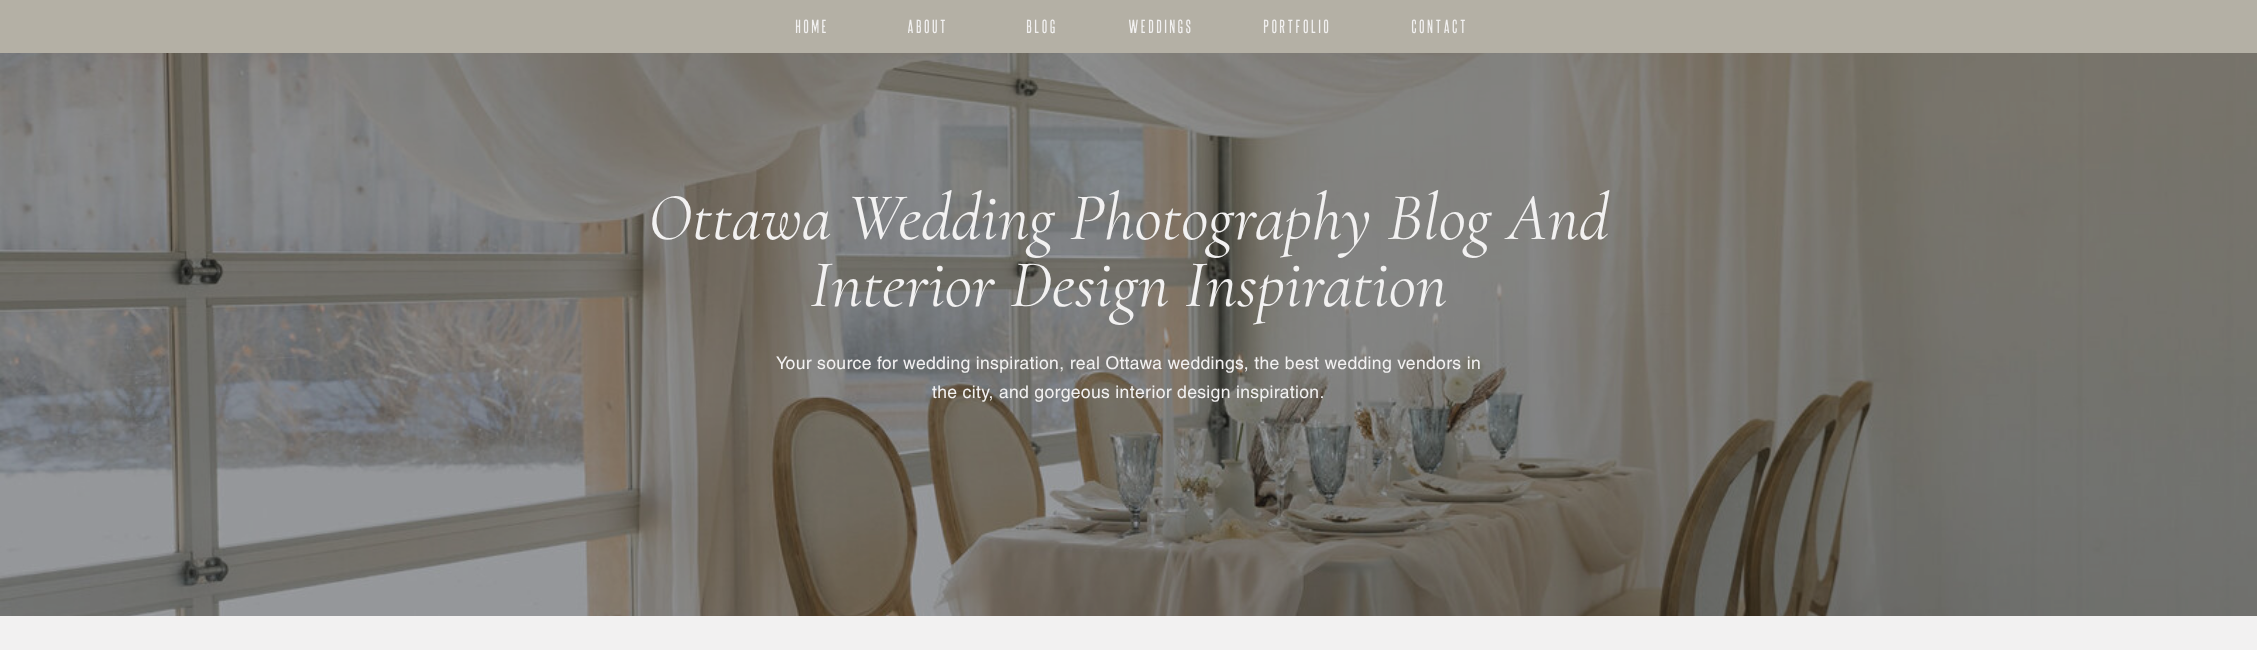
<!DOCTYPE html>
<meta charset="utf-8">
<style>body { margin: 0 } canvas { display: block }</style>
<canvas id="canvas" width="2257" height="650"></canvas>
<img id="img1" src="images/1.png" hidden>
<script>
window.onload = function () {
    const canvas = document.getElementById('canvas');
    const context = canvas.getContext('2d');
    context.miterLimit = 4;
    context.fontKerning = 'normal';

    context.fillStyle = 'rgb(25, 25, 26)';
    context.fillRect(0, 0, 2257, 650);
    context.fillStyle = 'rgb(180, 176, 165)';
    context.fillRect(0, 0, 2257, 53);
    context.drawImage(document.getElementById('img1'), 0, 53, 2257, 563);
    context.fillStyle = 'rgb(242, 241, 241)';
    context.fillRect(0, 616, 2257, 34);
    context.letterSpacing = '1.9px';
    context.font = '19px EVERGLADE';
    context.fillText('home', 795, 33);
    context.fillText('About', 907, 33);
    context.fillText('blog', 1026, 33);
    context.fillText('weddings', 1128, 33);
    context.fillText('PORTFOLIO', 1263, 33);
    context.fillText('Contact', 1411, 33);
    context.letterSpacing = '0px';
    context.font = 'italic 300 67.5px Cormorant Garamond';
    context.fillText('Ottawa Wedding Photography Blog And', 648, 239);
    context.fillText('Interior Design Inspiration', 810, 306);
    context.letterSpacing = '0.35px';
    context.font = '17.5px Helvetica';
    context.fillText('Your source for wedding inspiration, real Ottawa weddings, the best wedding vendors in', 776, 369);
    context.fillText('the city, and gorgeous interior design inspiration.', 932, 398);
};
</script>
